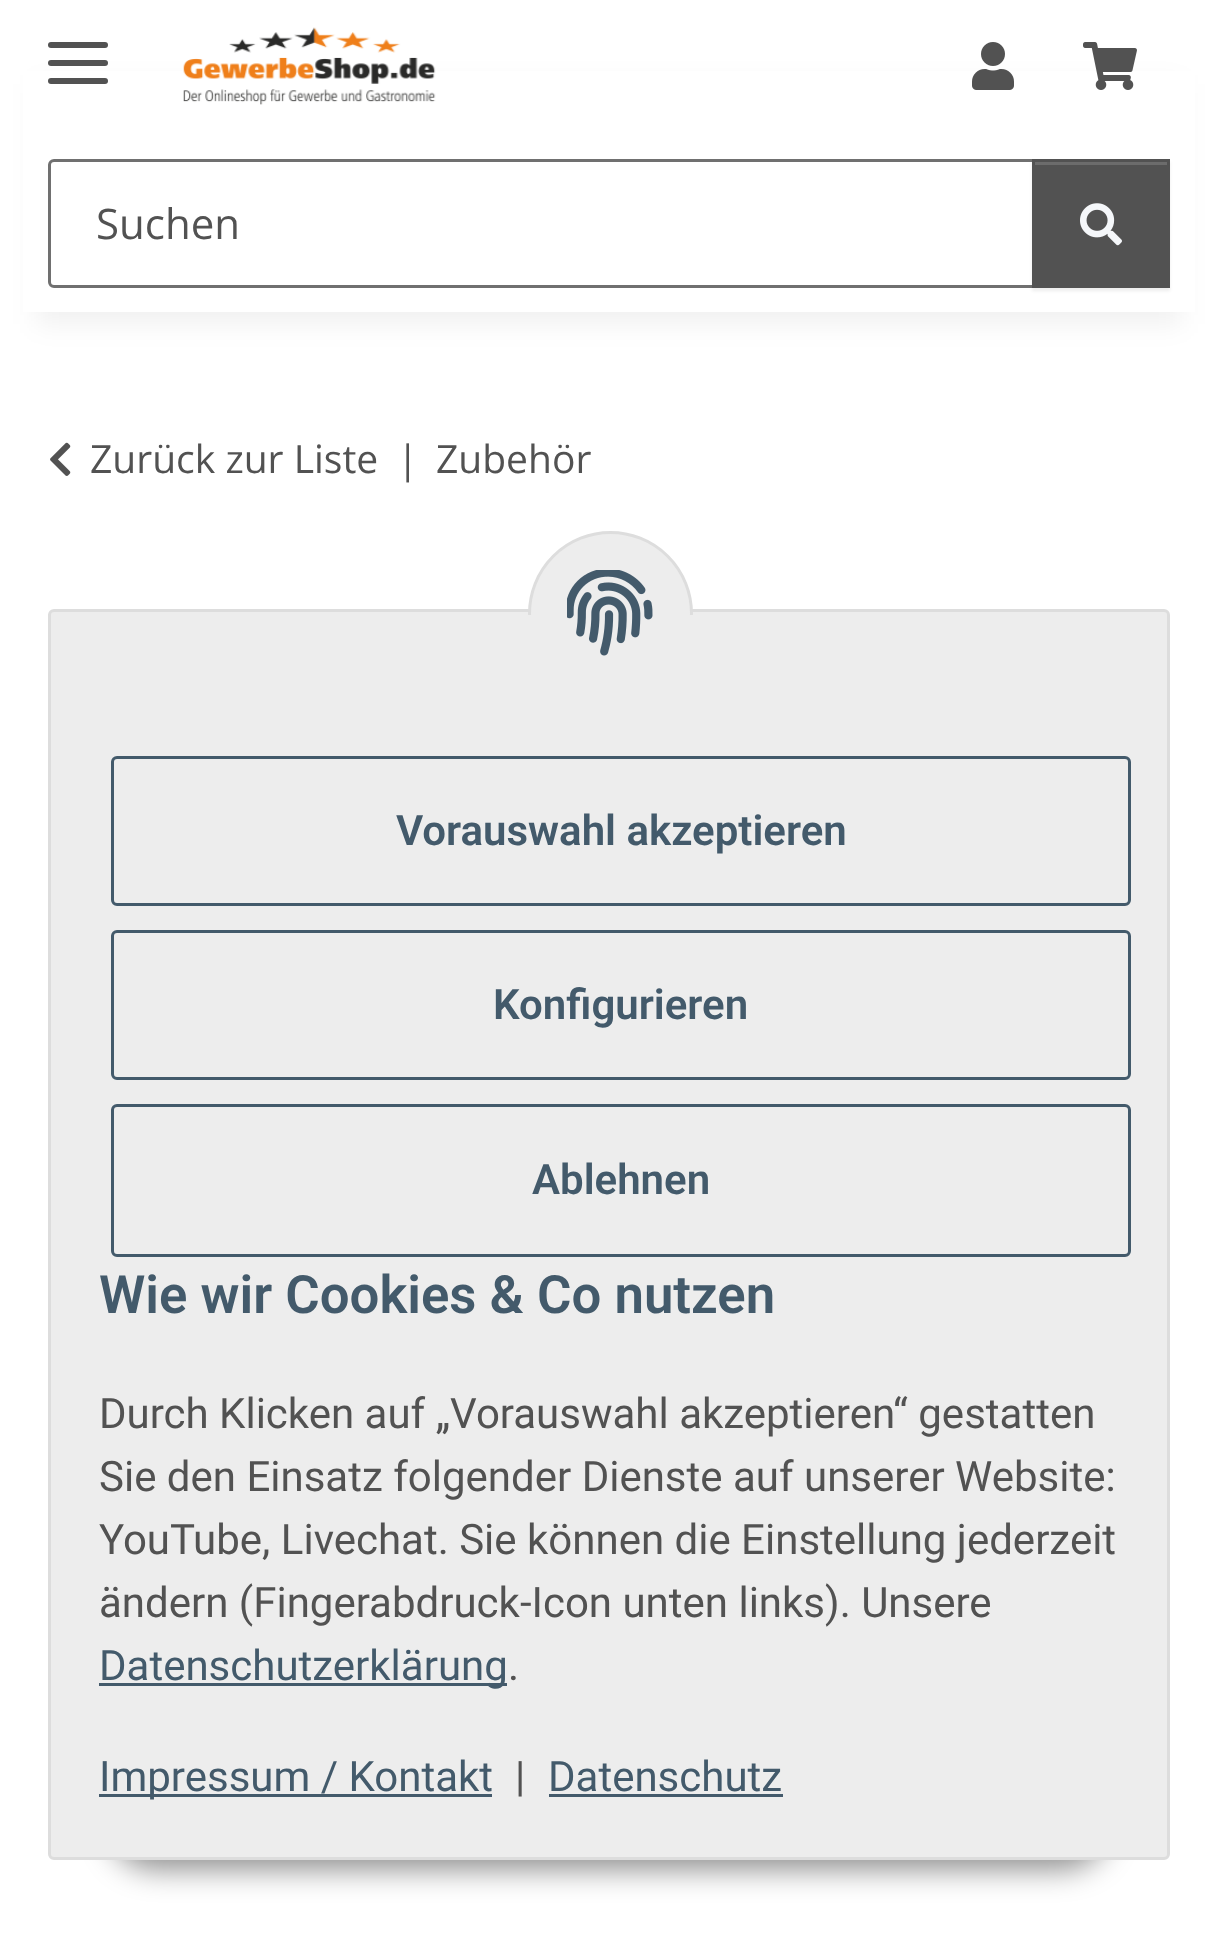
<!DOCTYPE html>
<meta charset="utf-8">
<style>body { margin: 0 } canvas { display: block }</style>
<canvas id="canvas" width="1218" height="1956"></canvas>
<img id="img1" src="images/1.png" hidden>
<img id="img2" src="images/2.png" hidden>
<img id="img3" src="images/3.png" hidden>
<img id="img4" src="images/4.png" hidden>
<img id="img5" src="images/5.png" hidden>
<img id="img6" src="images/6.png" hidden>
<script>
window.onload = function () {
    const canvas = document.getElementById('canvas');
    const context = canvas.getContext('2d');
    context.miterLimit = 4;
    context.fontKerning = 'normal';

    context.fillStyle = 'rgb(255, 255, 255)';
    context.fillRect(0, 0, 1218, 1956);
    context.fillStyle = 'rgba(0, 0, 0, 0.06)';
    context.filter = 'blur(13.5px)';
    context.beginPath();
    context.rect(36, 84, 1146, 240);
    context.fill();
    context.filter = 'none';
    context.fillStyle = 'rgb(255, 255, 255)';
    context.fillRect(23, 71, 1172, 241);
    context.fillStyle = 'rgb(82, 82, 82)';
    context.beginPath();
    context.roundRect(48, 60, 60, 6, 3);
    context.fill();
    context.beginPath();
    context.roundRect(48, 42, 60, 6, 3);
    context.fill();
    context.beginPath();
    context.roundRect(48, 78, 60, 6, 3);
    context.fill();
    context.drawImage(document.getElementById('img1'), 183, 27, 253, 78);
    context.drawImage(document.getElementById('img2'), 972, 42, 42, 48);
    context.drawImage(document.getElementById('img3'), 1083, 42, 54, 48);
    context.beginPath();
    context.roundRect(49.5, 160.5, 984, 126, [4.5, 0, 0, 4.5]);
    context.strokeStyle = 'rgb(112, 112, 112)';
    context.lineWidth = 3;
    context.stroke();
    context.fillStyle = 'rgba(0, 0, 0, 0.07)';
    context.filter = 'blur(1.5px)';
    context.beginPath();
    context.rect(1032, 162, 138, 129);
    context.fill();
    context.filter = 'none';
    context.fillStyle = 'rgb(82, 82, 82)';
    context.fillRect(1032, 159, 138, 129);
    context.fillStyle = 'rgb(108, 108, 108)';
    context.fillRect(1035, 162, 132, 3);
    context.drawImage(document.getElementById('img4'), 1080, 203, 42, 43);
    context.drawImage(document.getElementById('img5'), 50, 442, 21, 34);
    context.fillStyle = 'rgba(0, 0, 0, 0.45)';
    context.filter = 'blur(15px)';
    context.beginPath();
    context.roundRect(108, 1773, 1002, 96, 48);
    context.fill();
    context.filter = 'none';
    context.fillStyle = 'rgb(237, 237, 237)';
    context.beginPath();
    context.roundRect(49.5, 610.5, 1119, 1248, 4.5);
    context.fill();
    context.strokeStyle = 'rgb(221, 221, 221)';
    context.stroke();
    context.beginPath();
    context.arc(610.5, 613.5, 81, 0, 2 * Math.PI);
    context.fill();
    context.stroke();
    context.fillRect(528, 615, 165, 81);
    context.drawImage(document.getElementById('img6'), 567, 570, 86, 86);
    context.beginPath();
    context.roundRect(112.5, 757.5, 1017, 147, 4.5);
    context.strokeStyle = 'rgb(67, 90, 107)';
    context.stroke();
    context.beginPath();
    context.roundRect(112.5, 931.5, 1017, 147, 4.5);
    context.stroke();
    context.beginPath();
    context.roundRect(112.5, 1105.5, 1017, 150, 4.5);
    context.stroke();
    context.fillStyle = 'rgb(67, 90, 107)';
    context.fillRect(99, 1683, 408, 3);
    context.fillRect(99, 1794, 393, 3);
    context.fillRect(549, 1794, 234, 3);
    context.font = '42px Open Sans';
    context.fillStyle = 'rgb(82, 82, 82)';
    context.fillText('Suchen', 96, 239);
    context.font = '39px Open Sans';
    context.fillText('Zurück zur Liste', 90, 473);
    context.fillText('|', 397, 473);
    context.fillText('Zubehör', 436, 473);
    context.font = '600 42px Roboto';
    context.fillStyle = 'rgb(67, 90, 107)';
    context.fillText('Vorauswahl akzeptieren', 396, 845);
    context.fillText('Konfigurieren', 493, 1019);
    context.fillText('Ablehnen', 532, 1194);
    context.font = '600 52.75px Roboto';
    context.fillText('Wie wir Cookies & Co nutzen', 99, 1313);
    context.font = '42px Roboto';
    context.fillStyle = 'rgb(82, 82, 82)';
    context.fillText('Durch Klicken auf „Vorauswahl akzeptieren“ gestatten', 99, 1428);
    context.fillText('Sie den Einsatz folgender Dienste auf unserer Website:', 99, 1491);
    context.fillText('YouTube, Livechat. Sie können die Einstellung jederzeit', 99, 1554);
    context.fillText('ändern (Fingerabdruck-Icon unten links). Unsere', 99, 1617);
    context.fillStyle = 'rgb(67, 90, 107)';
    context.fillText('Datenschutzerklärung', 99, 1680);
    context.fillStyle = 'rgb(82, 82, 82)';
    context.fillText('.', 508, 1680);
    context.fillStyle = 'rgb(67, 90, 107)';
    context.fillText('Impressum / Kontakt', 99, 1791);
    context.fillStyle = 'rgb(82, 82, 82)';
    context.fillText('|', 515, 1791);
    context.fillStyle = 'rgb(67, 90, 107)';
    context.fillText('Datenschutz', 548, 1791);
};
</script>
